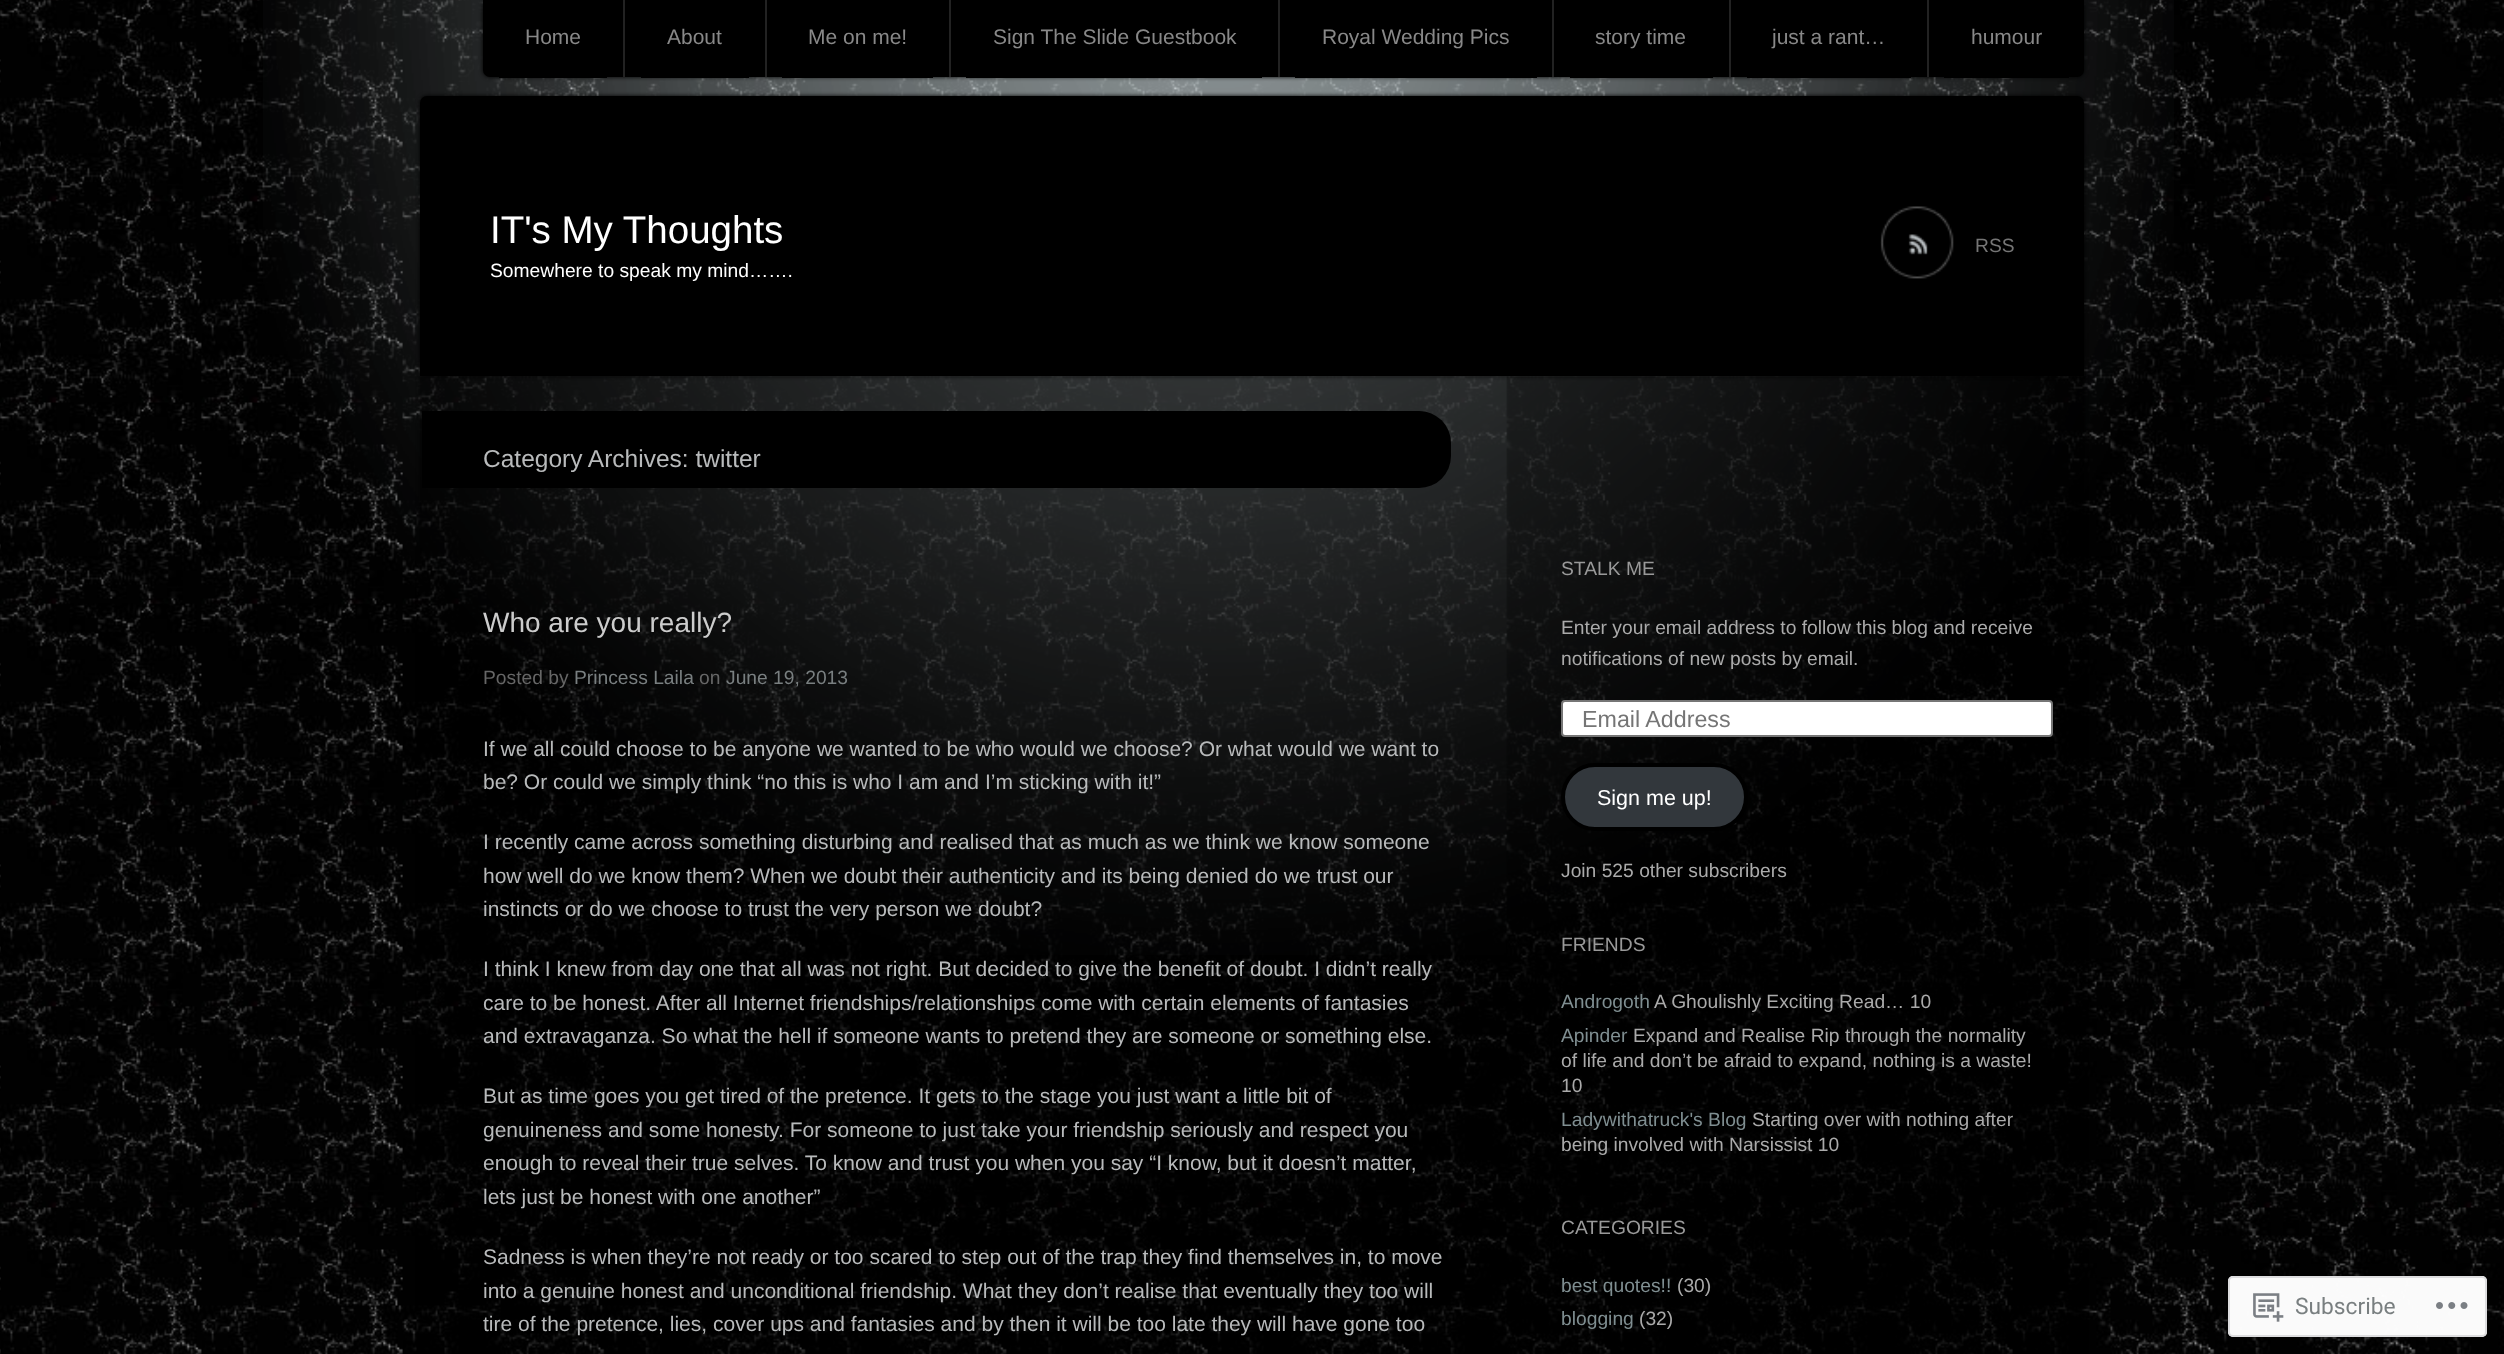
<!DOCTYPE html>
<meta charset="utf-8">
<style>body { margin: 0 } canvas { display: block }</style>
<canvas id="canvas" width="2504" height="1354"></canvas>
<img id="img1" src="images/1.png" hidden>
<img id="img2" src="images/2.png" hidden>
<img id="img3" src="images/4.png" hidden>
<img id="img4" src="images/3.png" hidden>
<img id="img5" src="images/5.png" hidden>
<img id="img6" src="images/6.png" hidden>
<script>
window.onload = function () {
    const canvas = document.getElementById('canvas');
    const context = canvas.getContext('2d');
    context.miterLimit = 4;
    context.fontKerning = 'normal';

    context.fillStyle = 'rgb(255, 255, 255)';
    context.fillRect(0, 0, 2504, 1354);
    context.drawImage(document.getElementById('img1'), 0, 0, 2504, 1354);
    context.drawImage(document.getElementById('img2'), 263, 0, 1911, 955);
    context.fillStyle = 'rgb(0, 0, 0)';
    context.filter = 'blur(2px)';
    context.beginPath();
    context.roundRect(483, 0, 1601, 77, 7);
    context.fill();
    context.filter = 'none';
    context.beginPath();
    context.roundRect(483, 0, 1601, 77, [0, 0, 7, 7]);
    context.fill();
    context.fillRect(499, 77, 108, 1);
    context.fillStyle = 'rgb(34, 34, 34)';
    context.fillRect(623, 0, 2, 77);
    context.fillStyle = 'rgb(0, 0, 0)';
    context.fillRect(641, 77, 108, 1);
    context.fillStyle = 'rgb(34, 34, 34)';
    context.fillRect(765, 0, 2, 77);
    context.fillStyle = 'rgb(0, 0, 0)';
    context.fillRect(782, 77, 151, 1);
    context.fillStyle = 'rgb(34, 34, 34)';
    context.fillRect(949, 0, 2, 77);
    context.fillStyle = 'rgb(0, 0, 0)';
    context.fillRect(966, 77, 296, 1);
    context.fillStyle = 'rgb(34, 34, 34)';
    context.fillRect(1278, 0, 2, 77);
    context.fillStyle = 'rgb(0, 0, 0)';
    context.fillRect(1295, 77, 242, 1);
    context.fillStyle = 'rgb(34, 34, 34)';
    context.fillRect(1552, 0, 2, 77);
    context.fillStyle = 'rgb(0, 0, 0)';
    context.fillRect(1570, 77, 143, 1);
    context.fillStyle = 'rgb(34, 34, 34)';
    context.fillRect(1729, 0, 2, 77);
    context.fillStyle = 'rgb(0, 0, 0)';
    context.fillRect(1747, 77, 164, 1);
    context.fillStyle = 'rgb(34, 34, 34)';
    context.fillRect(1927, 0, 2, 77);
    context.fillStyle = 'rgb(0, 0, 0)';
    context.fillRect(1944, 77, 125, 1);
    context.drawImage(document.getElementById('img3'), 415, 376, 1674, 978);
    context.filter = 'blur(2px)';
    context.beginPath();
    context.roundRect(420, 96, 1664, 280, 7);
    context.fill();
    context.filter = 'none';
    context.beginPath();
    context.roundRect(420, 96, 1664, 280, [7, 7, 0, 0]);
    context.fill();
    context.drawImage(document.getElementById('img4'), 1880, 206, 74, 73);
    context.beginPath();
    context.roundRect(422, 411, 1029, 77, [0, 32, 32, 0]);
    context.fill();
    context.fillStyle = 'rgb(255, 255, 255)';
    context.beginPath();
    context.roundRect(1562, 701, 490, 35, 3);
    context.fill();
    context.strokeStyle = 'rgb(118, 118, 118)';
    context.lineWidth = 2;
    context.stroke();
    context.fillStyle = 'rgb(50, 55, 60)';
    context.beginPath();
    context.roundRect(1563, 765, 183, 64, 32);
    context.fill();
    context.strokeStyle = 'rgb(0, 0, 0)';
    context.lineWidth = 4;
    context.stroke();
    context.fillStyle = 'rgba(255, 255, 255, 0.98)';
    context.beginPath();
    context.roundRect(2228, 1276, 259, 61, 5);
    context.fill();
    context.beginPath();
    context.roundRect(2229, 1277, 257, 59, 4);
    context.strokeStyle = 'rgba(220, 220, 222, 0.98)';
    context.lineWidth = 2;
    context.stroke();
    context.drawImage(document.getElementById('img5'), 2253, 1293, 31, 29);
    context.drawImage(document.getElementById('img6'), 2436, 1302, 32, 7);
    context.font = '21px Liberation Sans';
    context.fillStyle = 'rgb(136, 136, 136)';
    context.fillText('Home', 525, 44);
    context.fillText('About', 667, 44);
    context.fillText('Me on me!', 808, 44);
    context.fillText('Sign The Slide Guestbook', 993, 44);
    context.fillText('Royal Wedding Pics', 1322, 44);
    context.fillText('story time', 1595, 44);
    context.fillText('just a rant…', 1772, 44);
    context.fillText('humour', 1971, 44);
    context.font = '38.5px Liberation Sans';
    context.fillStyle = 'rgb(255, 255, 255)';
    context.fillText('IT\'s My Thoughts', 490, 243);
    context.font = '19.25px Liberation Sans';
    context.fillText('Somewhere to speak my mind…….', 490, 277);
    context.fillStyle = 'rgb(117, 117, 117)';
    context.fillText('RSS', 1975, 252);
    context.font = '24.5px Liberation Sans';
    context.fillStyle = 'rgb(184, 186, 187)';
    context.fillText('Category Archives: twitter', 483, 467);
    context.font = '28px Liberation Sans';
    context.fillStyle = 'rgb(204, 204, 204)';
    context.fillText('Who are you really?', 483, 632);
    context.font = '19.25px Liberation Sans';
    context.fillStyle = 'rgb(102, 102, 102)';
    context.fillText('Posted by', 483, 684);
    context.fillStyle = 'rgb(121, 127, 128)';
    context.fillText('Princess Laila', 574, 684);
    context.fillStyle = 'rgb(102, 102, 102)';
    context.fillText('on', 699, 684);
    context.fillStyle = 'rgb(121, 127, 128)';
    context.fillText('June 19, 2013', 726, 684);
    context.font = '21px Liberation Sans';
    context.fillStyle = 'rgb(184, 186, 187)';
    context.fillText('If we all could choose to be anyone we wanted to be who would we choose? Or what would we want to', 483, 756);
    context.fillText('be? Or could we simply think “no this is who I am and I’m sticking with it!”', 483, 789);
    context.fillText('I recently came across something disturbing and realised that as much as we think we know someone', 483, 849);
    context.fillText('how well do we know them? When we doubt their authenticity and its being denied do we trust our', 483, 883);
    context.fillText('instincts or do we choose to trust the very person we doubt?', 483, 916);
    context.fillText('I think I knew from day one that all was not right. But decided to give the benefit of doubt. I didn’t really', 483, 976);
    context.fillText('care to be honest. After all Internet friendships/relationships come with certain elements of fantasies', 483, 1010);
    context.fillText('and extravaganza. So what the hell if someone wants to pretend they are someone or something else.', 483, 1043);
    context.fillText('But as time goes you get tired of the pretence. It gets to the stage you just want a little bit of', 483, 1103);
    context.fillText('genuineness and some honesty. For someone to just take your friendship seriously and respect you', 483, 1137);
    context.fillText('enough to reveal their true selves. To know and trust you when you say “I know, but it doesn’t matter,', 483, 1170);
    context.fillText('lets just be honest with one another”', 483, 1204);
    context.fillText('Sadness is when they’re not ready or too scared to step out of the trap they find themselves in, to move', 483, 1264);
    context.fillText('into a genuine honest and unconditional friendship. What they don’t realise that eventually they too will', 483, 1298);
    context.fillText('tire of the pretence, lies, cover ups and fantasies and by then it will be too late they will have gone too', 483, 1331);
    context.font = '19.25px Liberation Sans';
    context.fillStyle = 'rgb(153, 153, 153)';
    context.fillText('STALK ME', 1561, 575);
    context.fillStyle = 'rgb(170, 170, 170)';
    context.fillText('Enter your email address to follow this blog and receive', 1561, 634);
    context.fillText('notifications of new posts by email.', 1561, 665);
    context.font = '23.25px Liberation Sans';
    context.fillStyle = 'rgb(117, 117, 117)';
    context.fillText('Email Address', 1582, 727);
    context.font = '21.5px Liberation Sans';
    context.fillStyle = 'rgb(255, 255, 255)';
    context.fillText('Sign me up!', 1597, 805);
    context.font = '19.25px Liberation Sans';
    context.fillStyle = 'rgb(170, 170, 170)';
    context.fillText('Join 525 other subscribers', 1561, 877);
    context.fillStyle = 'rgb(153, 153, 153)';
    context.fillText('FRIENDS', 1561, 951);
    context.fillStyle = 'rgb(127, 142, 145)';
    context.fillText('Androgoth', 1561, 1008);
    context.fillStyle = 'rgb(170, 170, 170)';
    context.fillText('A Ghoulishly Exciting Read… 10', 1654, 1008);
    context.fillStyle = 'rgb(127, 142, 145)';
    context.fillText('Apinder', 1561, 1042);
    context.fillStyle = 'rgb(170, 170, 170)';
    context.fillText('Expand and Realise Rip through the normality', 1633, 1042);
    context.fillText('of life and don’t be afraid to expand, nothing is a waste!', 1561, 1067);
    context.fillText('10', 1561, 1092);
    context.fillStyle = 'rgb(127, 142, 145)';
    context.fillText('Ladywithatruck\'s Blog', 1561, 1126);
    context.fillStyle = 'rgb(170, 170, 170)';
    context.fillText('Starting over with nothing after', 1752, 1126);
    context.fillText('being involved with Narsissist 10', 1561, 1151);
    context.fillStyle = 'rgb(153, 153, 153)';
    context.fillText('CATEGORIES', 1561, 1234);
    context.fillStyle = 'rgb(127, 142, 145)';
    context.fillText('best quotes!!', 1561, 1292);
    context.fillStyle = 'rgb(170, 170, 170)';
    context.fillText('(30)', 1677, 1292);
    context.fillStyle = 'rgb(127, 142, 145)';
    context.fillText('blogging', 1561, 1325);
    context.fillStyle = 'rgb(170, 170, 170)';
    context.fillText('(32)', 1639, 1325);
    context.font = '22.75px Roboto';
    context.fillStyle = 'rgb(121, 127, 128)';
    context.fillText('Subscribe', 2295, 1314);
};
</script>
